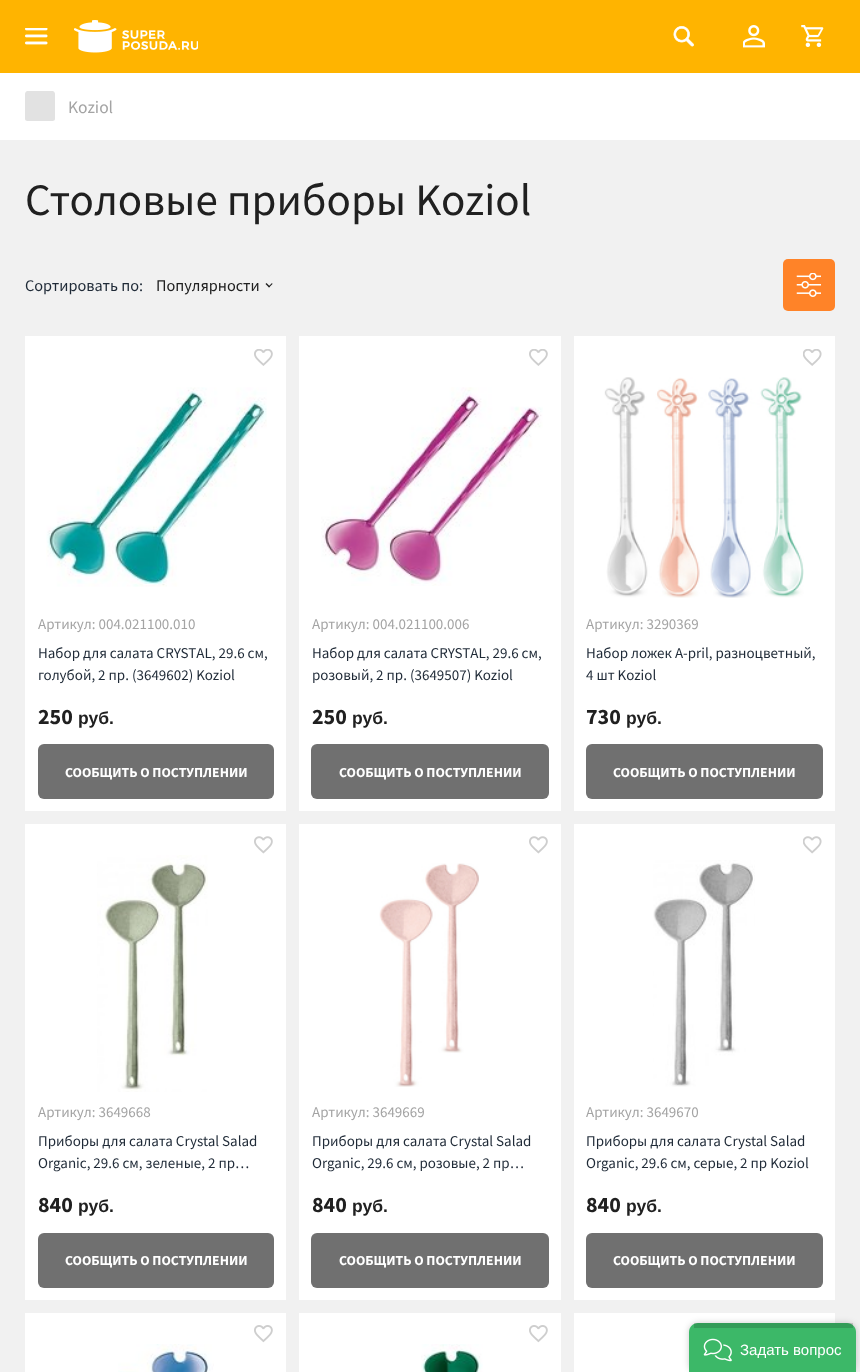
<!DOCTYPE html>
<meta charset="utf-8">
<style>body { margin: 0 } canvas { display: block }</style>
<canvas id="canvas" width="860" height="1372"></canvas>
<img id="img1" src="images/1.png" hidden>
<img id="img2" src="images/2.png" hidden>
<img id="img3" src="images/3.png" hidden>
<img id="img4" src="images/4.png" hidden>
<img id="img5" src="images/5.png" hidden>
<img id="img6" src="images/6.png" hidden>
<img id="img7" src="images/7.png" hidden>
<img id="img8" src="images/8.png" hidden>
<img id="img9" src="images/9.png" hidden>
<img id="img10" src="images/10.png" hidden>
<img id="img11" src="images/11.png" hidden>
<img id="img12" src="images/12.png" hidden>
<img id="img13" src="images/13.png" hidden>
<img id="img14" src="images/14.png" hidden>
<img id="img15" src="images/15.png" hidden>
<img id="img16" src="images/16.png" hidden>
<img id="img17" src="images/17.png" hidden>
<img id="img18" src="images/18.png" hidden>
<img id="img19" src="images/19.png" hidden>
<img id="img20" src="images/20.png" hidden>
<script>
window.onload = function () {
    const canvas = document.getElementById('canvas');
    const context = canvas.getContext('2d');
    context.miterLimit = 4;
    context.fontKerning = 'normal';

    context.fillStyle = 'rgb(241, 241, 241)';
    context.fillRect(0, 0, 860, 1372);
    context.fillStyle = 'rgb(255, 180, 0)';
    context.fillRect(0, 0, 860, 73);
    context.drawImage(document.getElementById('img1'), 25, 28, 23, 17);
    context.drawImage(document.getElementById('img2'), 74, 20, 124, 33);
    context.drawImage(document.getElementById('img3'), 673, 26, 21, 21);
    context.drawImage(document.getElementById('img4'), 743, 25, 22, 23);
    context.drawImage(document.getElementById('img5'), 801, 25, 23, 22);
    context.fillStyle = 'rgb(255, 255, 255)';
    context.fillRect(0, 73, 860, 67);
    context.fillStyle = 'rgb(226, 226, 226)';
    context.beginPath();
    context.moveTo(52.5, 121);
    context.lineTo(27.5, 121);
    context.bezierCurveTo(26, 121, 25, 120, 25, 119);
    context.lineTo(25, 94);
    context.bezierCurveTo(25, 92.5, 26, 91, 27.5, 91);
    context.lineTo(52.5, 91);
    context.bezierCurveTo(54, 91, 55, 92.5, 55, 94);
    context.lineTo(55, 119);
    context.bezierCurveTo(55, 120, 54, 121, 52.5, 121);
    context.closePath();
    context.fill();
    context.fillStyle = 'rgb(32, 32, 32)';
    context.beginPath();
    context.moveTo(272, 283);
    context.lineTo(272.5, 284);
    context.lineTo(269, 287.5);
    context.lineTo(268.5, 286.5);
    context.closePath();
    context.fill();
    context.beginPath();
    context.moveTo(266.5, 283);
    context.lineTo(270, 286.5);
    context.lineTo(269, 287.5);
    context.lineTo(265.5, 284);
    context.closePath();
    context.fill();
    context.fillStyle = 'rgb(255, 131, 40)';
    context.beginPath();
    context.roundRect(783, 259, 52, 52, 5);
    context.fill();
    context.drawImage(document.getElementById('img6'), 796, 273, 25, 24);
    context.fillStyle = 'rgb(255, 255, 255)';
    context.fillRect(25, 336, 261, 475);
    context.drawImage(document.getElementById('img7'), 46, 387, 221, 200);
    context.drawImage(document.getElementById('img8'), 254, 349, 19, 17);
    context.fillStyle = 'rgb(112, 112, 112)';
    context.beginPath();
    context.roundRect(38, 744, 236, 55, 6);
    context.fill();
    context.fillStyle = 'rgb(255, 255, 255)';
    context.fillRect(299, 336, 262, 475);
    context.drawImage(document.getElementById('img9'), 321, 387, 222, 199);
    context.drawImage(document.getElementById('img8'), 529, 349, 19, 17);
    context.fillStyle = 'rgb(112, 112, 112)';
    context.beginPath();
    context.roundRect(311, 744, 238, 55, 6);
    context.fill();
    context.fillStyle = 'rgb(255, 255, 255)';
    context.fillRect(574, 336, 261, 475);
    context.drawImage(document.getElementById('img10'), 604, 377, 200, 221);
    context.drawImage(document.getElementById('img11'), 803, 349, 19, 17);
    context.fillStyle = 'rgb(112, 112, 112)';
    context.beginPath();
    context.roundRect(586, 744, 237, 55, 6);
    context.fill();
    context.fillStyle = 'rgb(255, 255, 255)';
    context.fillRect(25, 824, 261, 476);
    context.drawImage(document.getElementById('img12'), 97, 855, 111, 237);
    context.drawImage(document.getElementById('img13'), 254, 836, 19, 18);
    context.fillStyle = 'rgb(112, 112, 112)';
    context.beginPath();
    context.roundRect(38, 1233, 236, 55, 6);
    context.fill();
    context.fillStyle = 'rgb(255, 255, 255)';
    context.fillRect(299, 824, 262, 476);
    context.drawImage(document.getElementById('img14'), 379, 863, 100, 224);
    context.drawImage(document.getElementById('img13'), 529, 836, 19, 18);
    context.fillStyle = 'rgb(112, 112, 112)';
    context.beginPath();
    context.roundRect(311, 1233, 238, 55, 6);
    context.fill();
    context.fillStyle = 'rgb(255, 255, 255)';
    context.fillRect(574, 824, 261, 476);
    context.drawImage(document.getElementById('img15'), 653, 860, 102, 227);
    context.drawImage(document.getElementById('img16'), 803, 836, 19, 18);
    context.fillStyle = 'rgb(112, 112, 112)';
    context.beginPath();
    context.roundRect(586, 1233, 237, 55, 6);
    context.fill();
    context.fillStyle = 'rgb(255, 255, 255)';
    context.fillRect(25, 1313, 261, 59);
    context.drawImage(document.getElementById('img17'), 254, 1325, 19, 18);
    context.drawImage(document.getElementById('img18'), 118, 1344, 96, 28);
    context.fillRect(299, 1313, 262, 59);
    context.drawImage(document.getElementById('img17'), 529, 1325, 19, 18);
    context.drawImage(document.getElementById('img19'), 421, 1344, 62, 28);
    context.fillRect(574, 1313, 261, 59);
    context.fillStyle = 'rgba(0, 0, 0, 0.2)';
    context.filter = 'blur(3px)';
    context.beginPath();
    context.roundRect(689, 1323, 167, 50, 9);
    context.fill();
    context.filter = 'none';
    context.fillStyle = 'rgb(60, 184, 104)';
    context.beginPath();
    context.moveTo(698, 1323);
    context.lineTo(847, 1323);
    context.bezierCurveTo(852, 1323, 856, 1327, 856, 1332);
    context.lineTo(856, 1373);
    context.lineTo(689, 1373);
    context.lineTo(689, 1332);
    context.bezierCurveTo(689, 1327, 693, 1323, 698, 1323);
    context.closePath();
    context.fill();
    context.fillStyle = 'rgba(0, 0, 0, 0.15)';
    context.fillRect(694, 1323, 159, 5);
    context.drawImage(document.getElementById('img20'), 703, 1338, 29, 24);
    context.font = '17.5px Source Sans Pro';
    context.fillStyle = 'rgb(164, 164, 164)';
    context.fillText('Koziol', 68, 113);
    context.font = '45px Source Sans Pro';
    context.fillStyle = 'rgb(32, 32, 32)';
    context.fillText('Столовые приборы Koziol', 25, 215);
    context.font = '16.25px Source Sans Pro';
    context.fillStyle = 'rgb(31, 42, 55)';
    context.fillText('Сортировать по:', 25, 291);
    context.fillStyle = 'rgb(32, 32, 32)';
    context.fillText('Популярности', 156, 291);
    context.font = '15px Source Sans Pro';
    context.fillStyle = 'rgb(164, 164, 164)';
    context.fillText('Артикул: 004.021100.010', 38, 629);
    context.fillStyle = 'rgb(31, 42, 55)';
    context.fillText('Набор для салата CRYSTAL, 29.6 см,', 38, 658);
    context.fillText('голубой, 2 пр. (3649602) Koziol', 38, 680);
    context.font = 'bold 22px Source Sans Pro';
    context.fillStyle = 'rgb(32, 32, 32)';
    context.fillText('250', 38, 724);
    context.font = 'bold 17.5px Liberation Sans';
    context.fillText('руб.', 78, 724);
    context.font = 'bold 13.75px Source Sans Pro';
    context.fillStyle = 'rgb(255, 255, 255)';
    context.fillText('СООБЩИТЬ О ПОСТУПЛЕНИИ', 65, 777);
    context.font = '15px Source Sans Pro';
    context.fillStyle = 'rgb(164, 164, 164)';
    context.fillText('Артикул: 004.021100.006', 312, 629);
    context.fillStyle = 'rgb(31, 42, 55)';
    context.fillText('Набор для салата CRYSTAL, 29.6 см,', 312, 658);
    context.fillText('розовый, 2 пр. (3649507) Koziol', 312, 680);
    context.font = 'bold 22px Source Sans Pro';
    context.fillStyle = 'rgb(32, 32, 32)';
    context.fillText('250', 312, 724);
    context.font = 'bold 17.5px Liberation Sans';
    context.fillText('руб.', 352, 724);
    context.font = 'bold 13.75px Source Sans Pro';
    context.fillStyle = 'rgb(255, 255, 255)';
    context.fillText('СООБЩИТЬ О ПОСТУПЛЕНИИ', 339, 777);
    context.font = '15px Source Sans Pro';
    context.fillStyle = 'rgb(164, 164, 164)';
    context.fillText('Артикул: 3290369', 586, 629);
    context.fillStyle = 'rgb(31, 42, 55)';
    context.fillText('Набор ложек A-pril, разноцветный,', 586, 658);
    context.fillText('4 шт Koziol', 586, 680);
    context.font = 'bold 22px Source Sans Pro';
    context.fillStyle = 'rgb(32, 32, 32)';
    context.fillText('730', 586, 724);
    context.font = 'bold 17.5px Liberation Sans';
    context.fillText('руб.', 626, 724);
    context.font = 'bold 13.75px Source Sans Pro';
    context.fillStyle = 'rgb(255, 255, 255)';
    context.fillText('СООБЩИТЬ О ПОСТУПЛЕНИИ', 613, 777);
    context.font = '15px Source Sans Pro';
    context.fillStyle = 'rgb(164, 164, 164)';
    context.fillText('Артикул: 3649668', 38, 1117);
    context.fillStyle = 'rgb(31, 42, 55)';
    context.fillText('Приборы для салата Crystal Salad', 38, 1146);
    context.fillText('Organic, 29.6 см, зеленые, 2 пр…', 38, 1168);
    context.font = 'bold 22px Source Sans Pro';
    context.fillStyle = 'rgb(32, 32, 32)';
    context.fillText('840', 38, 1212);
    context.font = 'bold 17.5px Liberation Sans';
    context.fillText('руб.', 78, 1212);
    context.font = 'bold 13.75px Source Sans Pro';
    context.fillStyle = 'rgb(255, 255, 255)';
    context.fillText('СООБЩИТЬ О ПОСТУПЛЕНИИ', 65, 1265);
    context.font = '15px Source Sans Pro';
    context.fillStyle = 'rgb(164, 164, 164)';
    context.fillText('Артикул: 3649669', 312, 1117);
    context.fillStyle = 'rgb(31, 42, 55)';
    context.fillText('Приборы для салата Crystal Salad', 312, 1146);
    context.fillText('Organic, 29.6 см, розовые, 2 пр…', 312, 1168);
    context.font = 'bold 22px Source Sans Pro';
    context.fillStyle = 'rgb(32, 32, 32)';
    context.fillText('840', 312, 1212);
    context.font = 'bold 17.5px Liberation Sans';
    context.fillText('руб.', 352, 1212);
    context.font = 'bold 13.75px Source Sans Pro';
    context.fillStyle = 'rgb(255, 255, 255)';
    context.fillText('СООБЩИТЬ О ПОСТУПЛЕНИИ', 339, 1265);
    context.font = '15px Source Sans Pro';
    context.fillStyle = 'rgb(164, 164, 164)';
    context.fillText('Артикул: 3649670', 586, 1117);
    context.fillStyle = 'rgb(31, 42, 55)';
    context.fillText('Приборы для салата Crystal Salad', 586, 1146);
    context.fillText('Organic, 29.6 см, серые, 2 пр Koziol', 586, 1168);
    context.font = 'bold 22px Source Sans Pro';
    context.fillStyle = 'rgb(32, 32, 32)';
    context.fillText('840', 586, 1212);
    context.font = 'bold 17.5px Liberation Sans';
    context.fillText('руб.', 626, 1212);
    context.font = 'bold 13.75px Source Sans Pro';
    context.fillStyle = 'rgb(255, 255, 255)';
    context.fillText('СООБЩИТЬ О ПОСТУПЛЕНИИ', 613, 1265);
    context.font = '15px Liberation Sans';
    context.fillText('Задать вопрос', 740, 1355);
};
</script>
